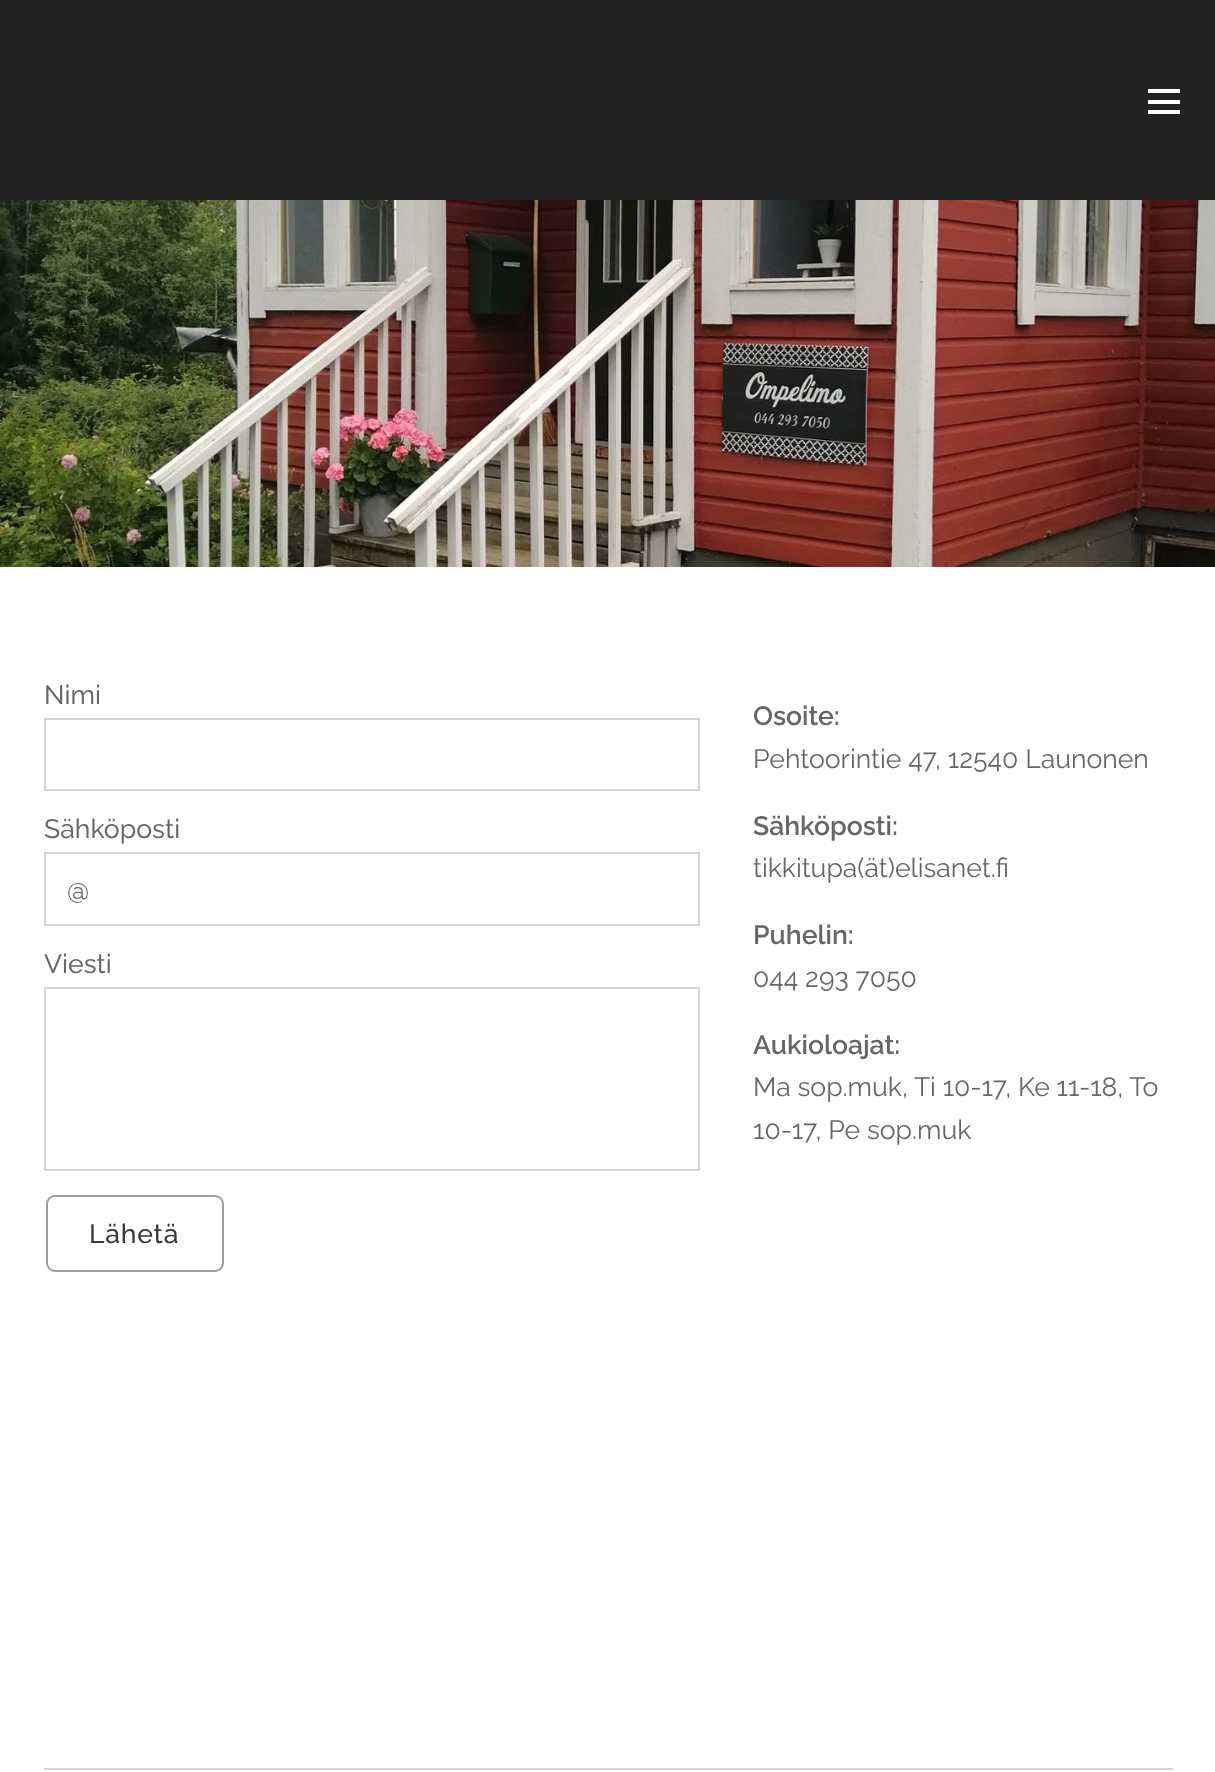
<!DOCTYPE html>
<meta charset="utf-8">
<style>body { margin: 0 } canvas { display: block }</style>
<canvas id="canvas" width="1215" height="1772"></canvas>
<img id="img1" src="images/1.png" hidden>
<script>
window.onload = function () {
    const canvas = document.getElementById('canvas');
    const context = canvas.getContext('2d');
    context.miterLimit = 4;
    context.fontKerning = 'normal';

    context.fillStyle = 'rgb(255, 255, 255)';
    context.fillRect(0, 0, 1215, 1772);
    context.fillStyle = 'rgb(34, 34, 34)';
    context.fillRect(0, 0, 1215, 200);
    context.fillStyle = 'rgb(255, 255, 255)';
    context.fillRect(1148, 100, 32, 4);
    context.fillRect(1148, 89, 32, 4);
    context.fillRect(1148, 110, 32, 4);
    context.drawImage(document.getElementById('img1'), 0, 200, 1215, 367);
    context.strokeStyle = 'rgb(212, 212, 212)';
    context.lineWidth = 2;
    context.strokeRect(45, 719, 654, 71);
    context.strokeRect(45, 853, 654, 72);
    context.strokeRect(45, 988, 654, 182);
    context.beginPath();
    context.roundRect(47, 1196, 176, 75, 8);
    context.strokeStyle = 'rgb(157, 157, 157)';
    context.stroke();
    context.fillStyle = 'rgb(212, 212, 212)';
    context.fillRect(44, 1768, 1129, 2);
    context.font = '26.6px Raleway';
    context.fillStyle = 'rgb(102, 102, 102)';
    context.fillText('Nimi', 44, 704);
    context.fillText('Sähköposti', 44, 838);
    context.fillText('@', 67, 899);
    context.fillText('Viesti', 44, 973);
    context.letterSpacing = '0.75px';
    context.font = '500 26.6px Raleway';
    context.fillStyle = 'rgb(57, 57, 57)';
    context.fillText('Lähetä', 89, 1243);
    context.letterSpacing = '0px';
    context.font = '600 26.6px Raleway';
    context.fillStyle = 'rgb(102, 102, 102)';
    context.fillText('Osoite:', 753, 725);
    context.font = '26.6px "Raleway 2"';
    context.fillText('Pehtoorintie 47, 12540 Launonen', 753, 768);
    context.font = '600 26.6px Raleway';
    context.fillText('Sähköposti:', 753, 835);
    context.font = '26.6px "Raleway 2"';
    context.fillText('tikkitupa(ät)elisanet.fi', 753, 877);
    context.font = '600 26.6px Raleway';
    context.fillText('Puhelin:', 753, 944);
    context.font = '26.6px "Raleway 2"';
    context.fillText('044 293 7050', 753, 987);
    context.font = '600 26.6px Raleway';
    context.fillText('Aukioloajat:', 753, 1054);
    context.font = '26.6px "Raleway 2"';
    context.fillText('Ma sop.muk, Ti 10-17, Ke 11-18, To', 753, 1096);
    context.fillText('10-17, Pe sop.muk', 753, 1139);
};
</script>
